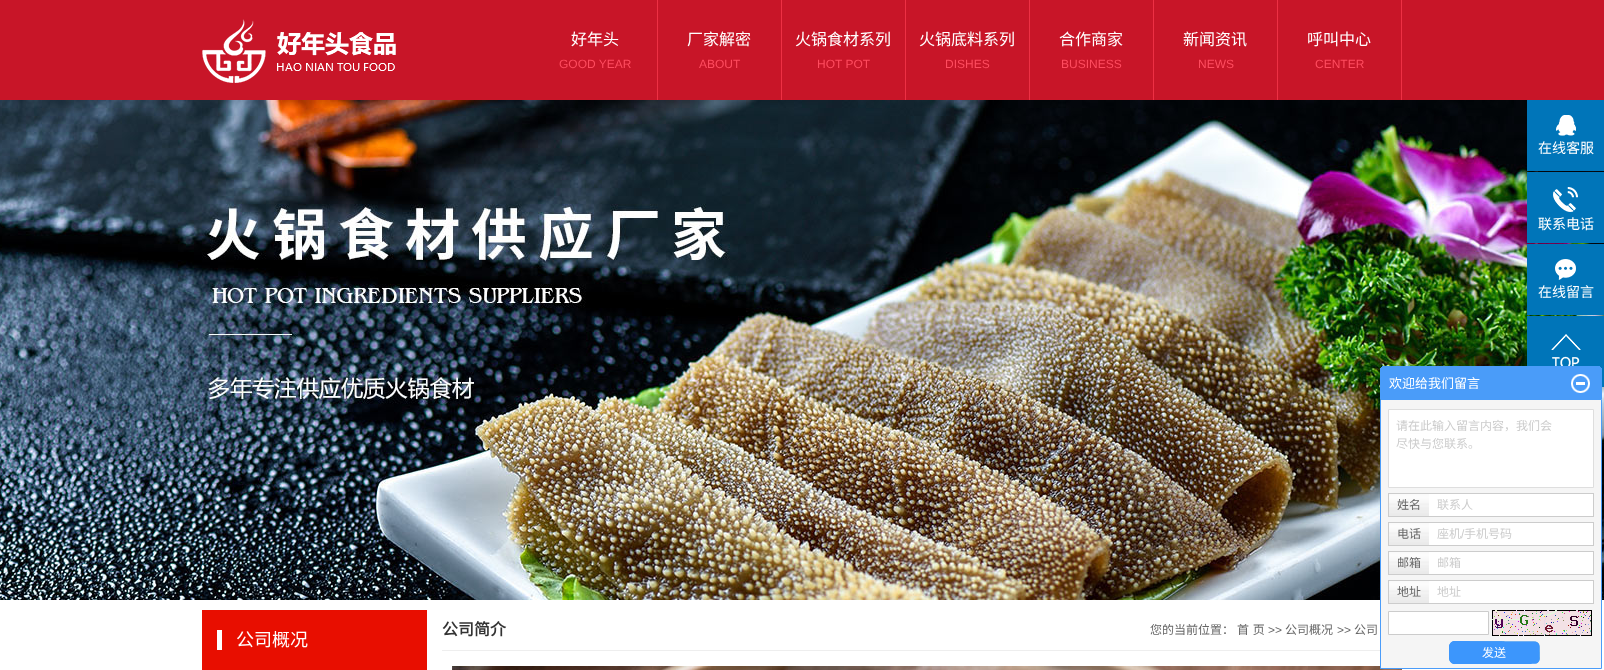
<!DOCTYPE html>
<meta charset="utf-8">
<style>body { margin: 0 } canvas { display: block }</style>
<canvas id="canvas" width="1604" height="670"></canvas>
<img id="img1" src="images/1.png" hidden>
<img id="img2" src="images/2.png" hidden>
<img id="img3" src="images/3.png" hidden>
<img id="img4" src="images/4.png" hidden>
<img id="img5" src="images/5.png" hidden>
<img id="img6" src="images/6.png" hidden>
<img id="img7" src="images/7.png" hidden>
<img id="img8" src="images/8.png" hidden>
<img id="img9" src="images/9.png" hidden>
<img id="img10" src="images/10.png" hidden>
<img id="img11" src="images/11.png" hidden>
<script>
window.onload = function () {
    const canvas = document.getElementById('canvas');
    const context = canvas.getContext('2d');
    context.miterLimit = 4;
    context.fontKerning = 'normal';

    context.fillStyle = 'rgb(255, 255, 255)';
    context.fillRect(0, 0, 1604, 670);
    context.fillStyle = 'rgb(200, 21, 40)';
    context.fillRect(0, 0, 1604, 100);
    context.drawImage(document.getElementById('img1'), 202, 19, 194, 64);
    context.fillStyle = 'rgb(237, 48, 68)';
    context.fillRect(657, 0, 1, 100);
    context.fillRect(781, 0, 1, 100);
    context.fillRect(905, 0, 1, 100);
    context.fillRect(1029, 0, 1, 100);
    context.fillRect(1153, 0, 1, 100);
    context.fillRect(1277, 0, 1, 100);
    context.fillRect(1401, 0, 1, 100);
    context.drawImage(document.getElementById('img2'), 0, 100, 1604, 500);
    context.fillStyle = 'rgb(0, 117, 185)';
    context.fillRect(1527, 100, 77, 71);
    context.drawImage(document.getElementById('img3'), 1556, 115, 20, 21);
    context.fillRect(1527, 172, 77, 71);
    context.drawImage(document.getElementById('img4'), 1553, 187, 25, 25);
    context.fillRect(1527, 244, 77, 71);
    context.drawImage(document.getElementById('img5'), 1555, 259, 21, 21);
    context.fillRect(1527, 316, 77, 71);
    context.drawImage(document.getElementById('img6'), 1551, 334, 30, 32);
    context.fillStyle = 'rgb(232, 14, 0)';
    context.fillRect(202, 610, 225, 60);
    context.fillStyle = 'rgb(255, 255, 255)';
    context.fillRect(217, 630, 5, 20);
    context.fillStyle = 'rgb(238, 238, 238)';
    context.fillRect(442, 650, 938, 1);
    context.drawImage(document.getElementById('img7'), 452, 666, 950, 4);
    context.fillStyle = 'rgb(74, 156, 249)';
    context.fillRect(1382, 366, 218, 1);
    context.fillRect(1381, 367, 220, 1);
    context.fillRect(1380, 368, 222, 31);
    context.drawImage(document.getElementById('img8'), 1571, 374, 19, 19);
    context.fillStyle = 'rgb(245, 245, 245)';
    context.beginPath();
    context.rect(1380.5, 399.5, 221, 269);
    context.fill();
    context.strokeStyle = 'rgb(74, 156, 249)';
    context.stroke();
    context.fillStyle = 'rgb(255, 255, 255)';
    context.beginPath();
    context.rect(1388.5, 409.5, 205, 78);
    context.fill();
    context.strokeStyle = 'rgb(222, 222, 222)';
    context.stroke();
    context.fillRect(1429, 494, 164, 22);
    context.strokeStyle = 'rgb(204, 204, 204)';
    context.strokeRect(1388.5, 493.5, 205, 23);
    context.drawImage(document.getElementById('img9'), 1389, 494, 40, 22);
    context.fillRect(1429, 523, 164, 22);
    context.strokeRect(1388.5, 522.5, 205, 23);
    context.drawImage(document.getElementById('img9'), 1389, 523, 40, 22);
    context.fillRect(1429, 552, 164, 22);
    context.strokeRect(1388.5, 551.5, 205, 23);
    context.drawImage(document.getElementById('img9'), 1389, 552, 40, 22);
    context.fillRect(1429, 581, 164, 22);
    context.strokeRect(1388.5, 580.5, 205, 23);
    context.drawImage(document.getElementById('img9'), 1389, 581, 40, 22);
    context.beginPath();
    context.rect(1388.5, 611.5, 100, 23);
    context.fill();
    context.stroke();
    context.drawImage(document.getElementById('img10'), 1492, 610, 100, 26);
    context.drawImage(document.getElementById('img11'), 1449, 641, 91, 24);
    context.font = '16px Noto Sans CJK SC';
    context.fillText('好年头', 571, 45);
    context.font = '12px Liberation Sans';
    context.fillStyle = 'rgb(255, 76, 95)';
    context.fillText('GOOD YEAR', 559, 68);
    context.font = '16px Noto Sans CJK SC';
    context.fillStyle = 'rgb(255, 255, 255)';
    context.fillText('厂家解密', 687, 45);
    context.font = '12px Liberation Sans';
    context.fillStyle = 'rgb(255, 76, 95)';
    context.fillText('ABOUT', 699, 68);
    context.font = '16px Noto Sans CJK SC';
    context.fillStyle = 'rgb(255, 255, 255)';
    context.fillText('火锅食材系列', 795, 45);
    context.font = '12px Liberation Sans';
    context.fillStyle = 'rgb(255, 76, 95)';
    context.fillText('HOT POT', 817, 68);
    context.font = '16px Noto Sans CJK SC';
    context.fillStyle = 'rgb(255, 255, 255)';
    context.fillText('火锅底料系列', 919, 45);
    context.font = '12px Liberation Sans';
    context.fillStyle = 'rgb(255, 76, 95)';
    context.fillText('DISHES', 945, 68);
    context.font = '16px Noto Sans CJK SC';
    context.fillStyle = 'rgb(255, 255, 255)';
    context.fillText('合作商家', 1059, 45);
    context.font = '12px Liberation Sans';
    context.fillStyle = 'rgb(255, 76, 95)';
    context.fillText('BUSINESS', 1061, 68);
    context.font = '16px Noto Sans CJK SC';
    context.fillStyle = 'rgb(255, 255, 255)';
    context.fillText('新闻资讯', 1183, 45);
    context.font = '12px Liberation Sans';
    context.fillStyle = 'rgb(255, 76, 95)';
    context.fillText('NEWS', 1198, 68);
    context.font = '16px Noto Sans CJK SC';
    context.fillStyle = 'rgb(255, 255, 255)';
    context.fillText('呼叫中心', 1307, 45);
    context.font = '12px Liberation Sans';
    context.fillStyle = 'rgb(255, 76, 95)';
    context.fillText('CENTER', 1315, 68);
    context.font = '14px Noto Sans CJK SC';
    context.fillStyle = 'rgb(255, 255, 255)';
    context.fillText('在线客服', 1538, 153);
    context.fillText('联系电话', 1538, 229);
    context.fillText('在线留言', 1538, 297);
    context.font = '18px Noto Sans CJK SC';
    context.fillText('公司概况', 236, 646);
    context.font = 'bold 16px Noto Sans CJK SC';
    context.fillStyle = 'rgb(51, 51, 51)';
    context.fillText('公司简介', 442, 635);
    context.font = '12px Noto Sans CJK SC';
    context.fillStyle = 'rgb(102, 102, 102)';
    context.fillText('您的当前位置：', 1150, 634);
    context.wordSpacing = '1px';
    context.fillText('首 页', 1237, 634);
    context.wordSpacing = '0px';
    context.font = '12px Liberation Sans';
    context.fillText('>>', 1268, 634);
    context.font = '12px Noto Sans CJK SC';
    context.fillText('公司概况', 1285, 634);
    context.font = '12px Liberation Sans';
    context.fillText('>>', 1337, 634);
    context.font = '12px Noto Sans CJK SC';
    context.fillText('公司', 1354, 634);
    context.font = '13px Noto Sans CJK SC';
    context.fillStyle = 'rgb(255, 255, 255)';
    context.fillText('欢迎给我们留言', 1389, 388);
    context.font = '12px Noto Sans CJK SC';
    context.fillStyle = 'rgb(204, 204, 204)';
    context.fillText('请在此输入留言内容，我们会', 1396, 430);
    context.fillText('尽快与您联系。', 1396, 448);
    context.fillStyle = 'rgb(102, 102, 102)';
    context.fillText('姓名', 1397, 509);
    context.fillStyle = 'rgb(204, 204, 204)';
    context.fillText('联系人', 1437, 509);
    context.fillStyle = 'rgb(102, 102, 102)';
    context.fillText('电话', 1397, 538);
    context.fillStyle = 'rgb(204, 204, 204)';
    context.fillText('座机', 1437, 538);
    context.font = '12px Liberation Sans';
    context.fillText('/', 1461, 538);
    context.font = '12px Noto Sans CJK SC';
    context.fillText('手机号码', 1464, 538);
    context.fillStyle = 'rgb(102, 102, 102)';
    context.fillText('邮箱', 1397, 567);
    context.fillStyle = 'rgb(204, 204, 204)';
    context.fillText('邮箱', 1437, 567);
    context.fillStyle = 'rgb(102, 102, 102)';
    context.fillText('地址', 1397, 596);
    context.fillStyle = 'rgb(204, 204, 204)';
    context.fillText('地址', 1437, 596);
    context.fillStyle = 'rgb(255, 255, 255)';
    context.fillText('发送', 1482, 657);
};
</script>
